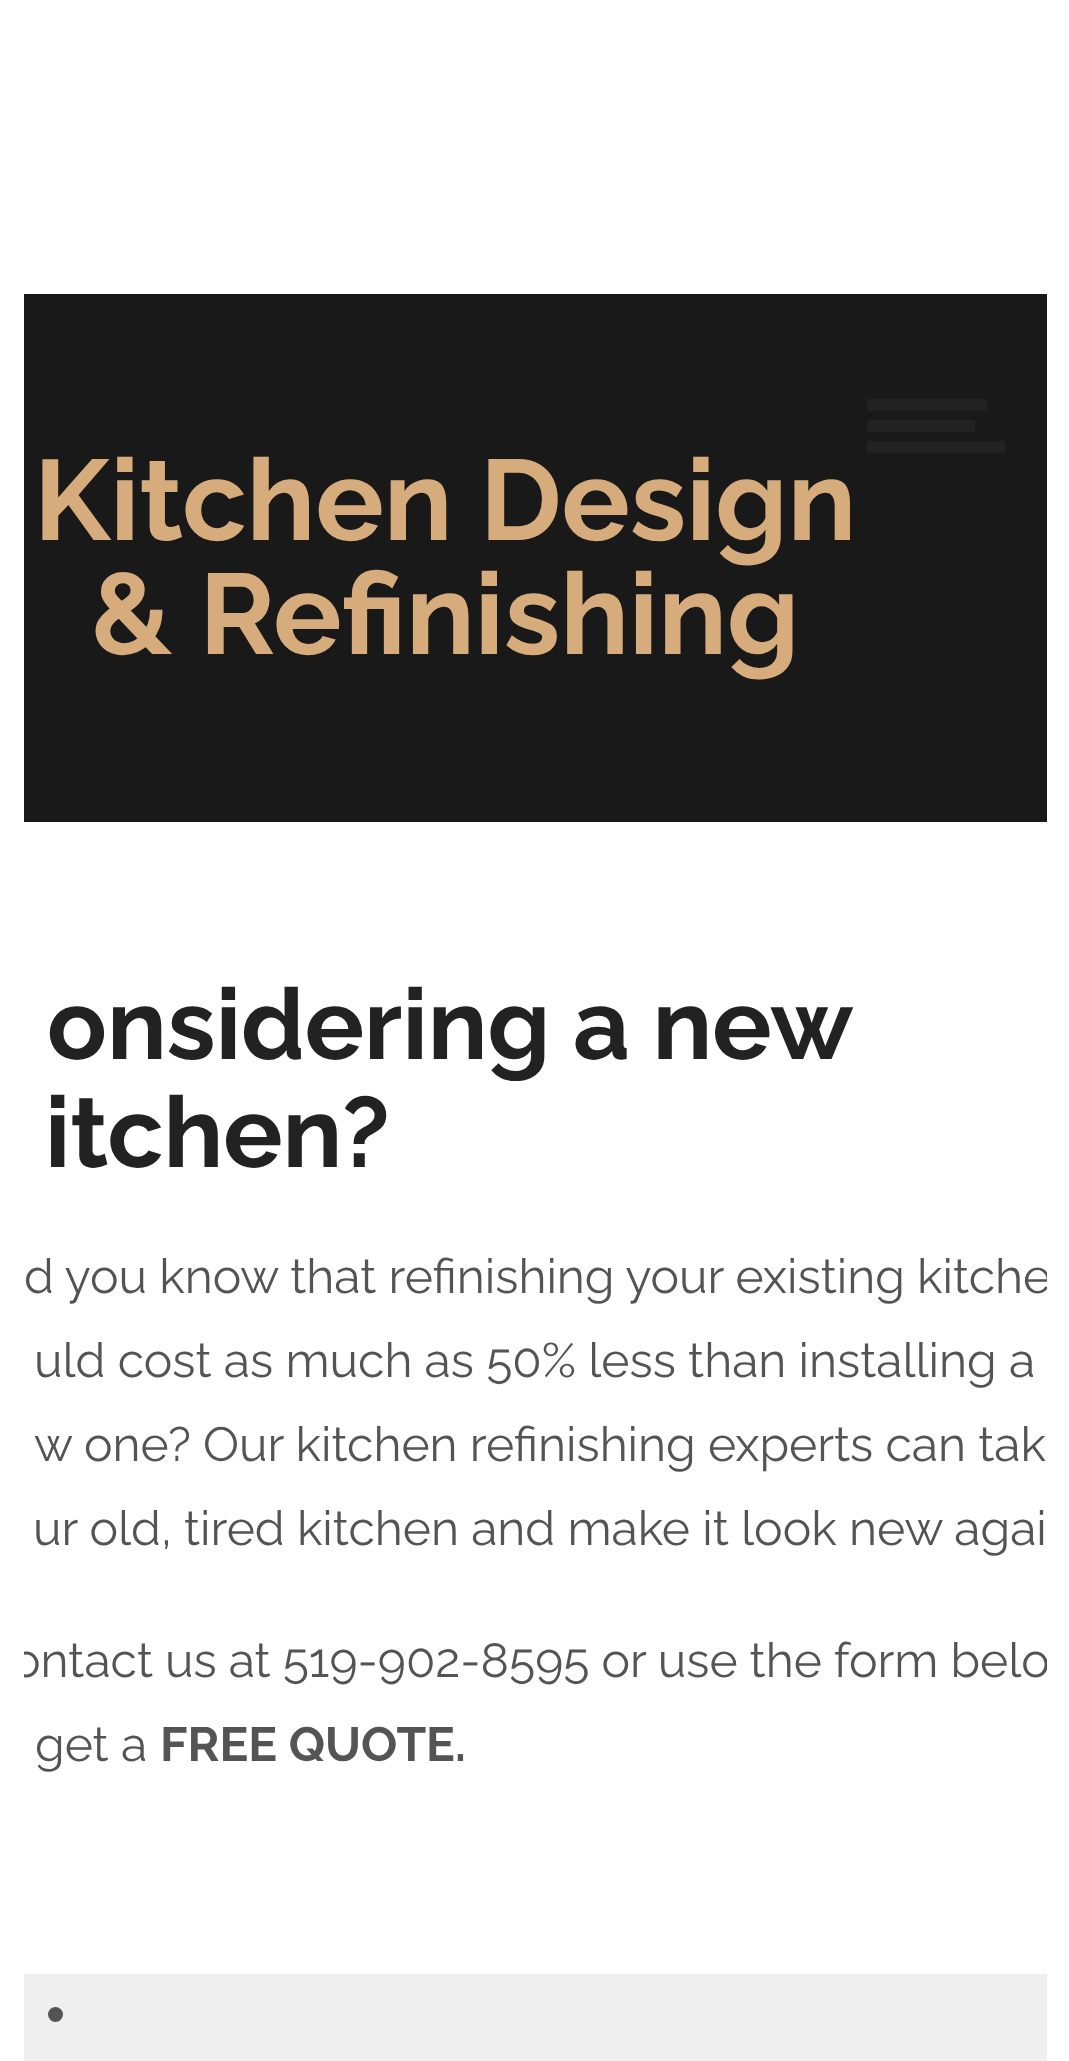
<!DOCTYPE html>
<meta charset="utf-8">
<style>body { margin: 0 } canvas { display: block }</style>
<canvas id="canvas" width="1069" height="2061"></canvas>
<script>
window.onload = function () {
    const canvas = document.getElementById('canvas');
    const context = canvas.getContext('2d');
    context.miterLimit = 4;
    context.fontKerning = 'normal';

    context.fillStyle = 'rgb(255, 255, 255)';
    context.fillRect(0, 0, 1069, 2061);
    context.fillStyle = 'rgb(25, 25, 25)';
    context.fillRect(24, 294, 1023, 528);
    context.fillStyle = 'rgb(34, 34, 34)';
    context.fillRect(867, 441, 138, 12);
    context.fillRect(867, 420, 108, 12);
    context.fillRect(867, 399, 120, 12);
    context.fillStyle = 'rgb(239, 239, 239)';
    context.fillRect(24, 1974, 1023, 87);
    context.fillStyle = 'rgb(84, 84, 84)';
    context.beginPath();
    context.arc(55.5, 2014.5, 7.5, 0, 2 * Math.PI);
    context.fill();
    context.font = 'bold 114px Raleway';
    context.fillStyle = 'rgb(214, 172, 124)';
    context.fillText('Kitchen Design', 34, 540);
    context.fillText('& Refinishing', 91, 654);
    context.wordSpacing = '-1px';
    context.font = 'bold 99px Raleway';
    context.fillStyle = 'rgb(34, 34, 34)';
    context.fillText('onsidering a new', 47, 1059);
    context.wordSpacing = '0px';
    context.fillText('itchen?', 45, 1167);
    context.save();
    context.beginPath();
    context.rect(24, 21, 1023, 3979);
    context.clip();
    context.font = '48px Raleway';
    context.fillStyle = 'rgb(84, 84, 84)';
    context.fillText('d you know that refinishing your existing kitche', 24, 1293);
    context.restore();
    context.font = '48px Raleway';
    context.fillStyle = 'rgb(84, 84, 84)';
    context.fillText('uld cost as much as 50% less than installing a', 34, 1377);
    context.fillText('w one? Our kitchen refinishing experts can tak', 34, 1461);
    context.fillText('ur old, tired kitchen and make it look new agai', 33, 1545);
    context.save();
    context.beginPath();
    context.rect(24, 21, 1023, 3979);
    context.clip();
    context.wordSpacing = '-0.25px';
    context.fillText('ontact us at 519-902-8595 or use the form belo', 12, 1677);
    context.restore();
    context.fillText('get a', 35, 1761);
    context.font = 'bold 48px Raleway';
    context.fillText('FREE QUOTE.', 160, 1761);
};
</script>
